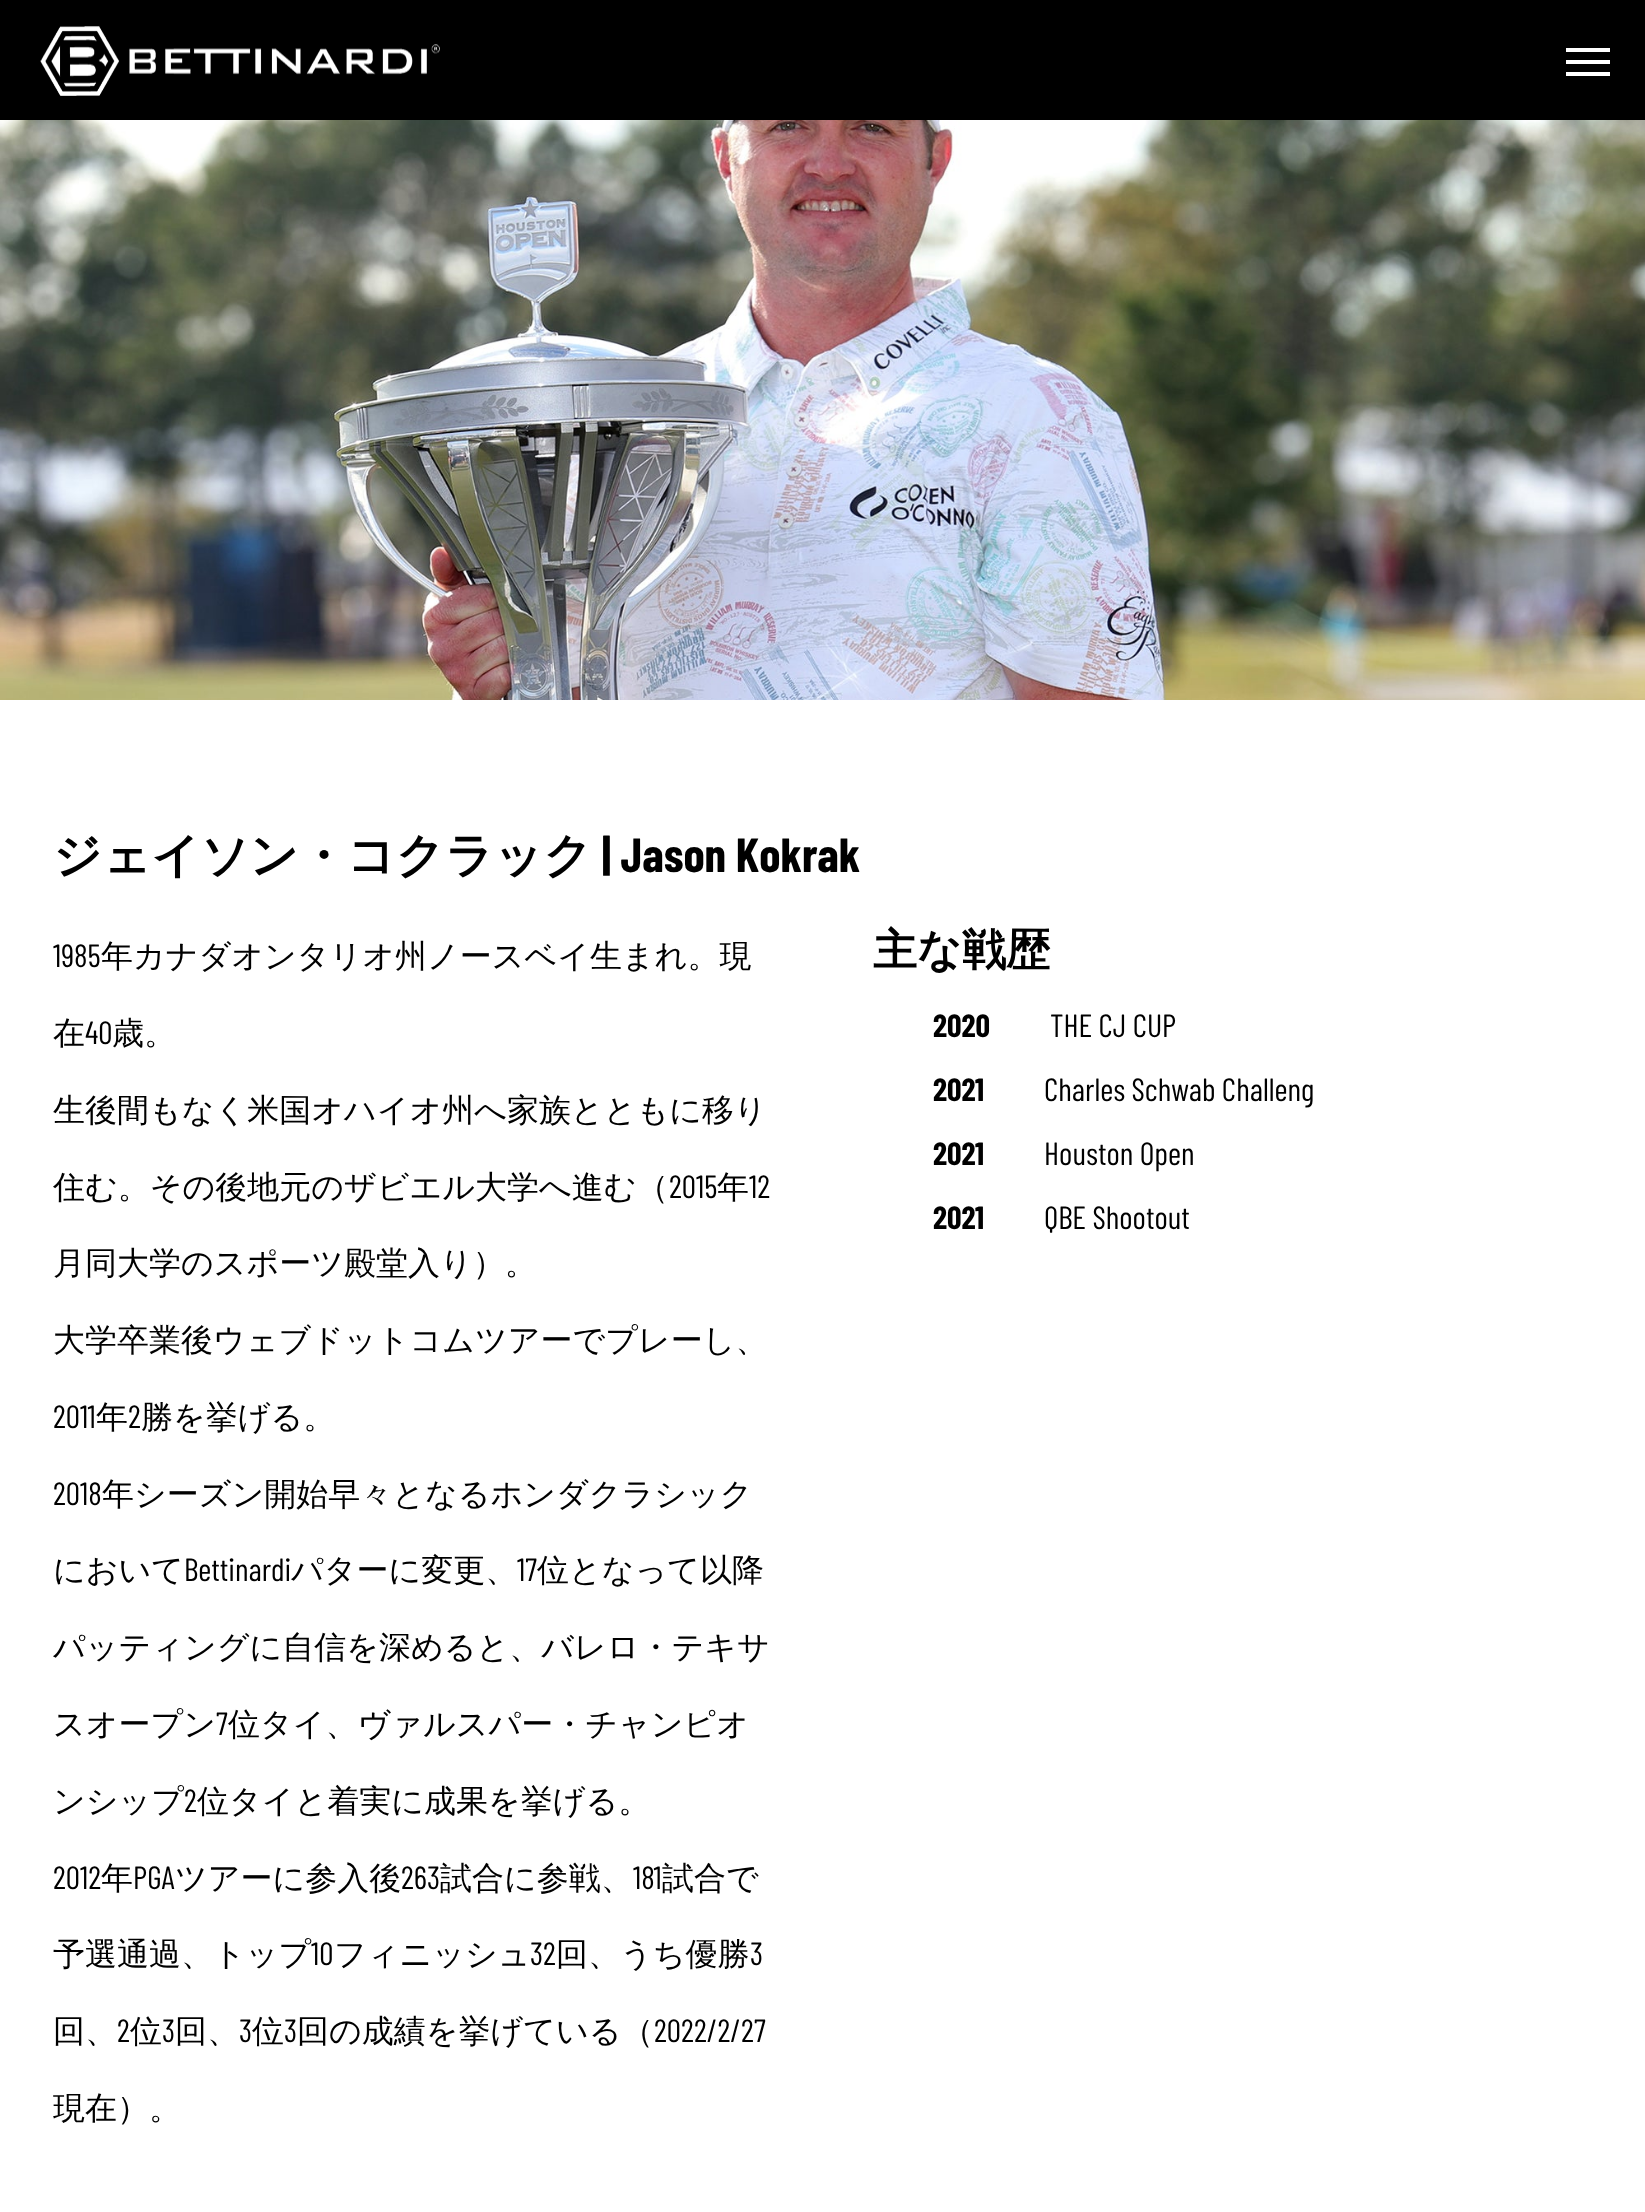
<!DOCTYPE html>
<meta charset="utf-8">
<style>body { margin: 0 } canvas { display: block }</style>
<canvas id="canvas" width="1645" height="2212"></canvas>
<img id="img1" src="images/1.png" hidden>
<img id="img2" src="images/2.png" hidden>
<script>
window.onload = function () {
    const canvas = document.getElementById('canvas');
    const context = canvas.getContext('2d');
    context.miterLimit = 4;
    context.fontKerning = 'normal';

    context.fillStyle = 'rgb(255, 255, 255)';
    context.fillRect(0, 0, 1645, 2212);
    context.fillStyle = 'rgb(0, 0, 0)';
    context.fillRect(0, 0, 1645, 120);
    context.drawImage(document.getElementById('img1'), 40, 26, 400, 70);
    context.fillStyle = 'rgb(255, 255, 255)';
    context.fillRect(1566, 48, 44, 4);
    context.fillRect(1566, 60, 44, 4);
    context.fillRect(1566, 72, 44, 4);
    context.drawImage(document.getElementById('img2'), 0, 120, 1645, 580);
    context.font = 'bold 48px WenQuanYi Zen Hei';
    context.fillStyle = 'rgb(0, 0, 0)';
    context.fillText('ジェイソン・コクラック', 53, 872);
    context.font = 'bold 48px Barlow Condensed';
    context.fillText('| Jason Kokrak', 602, 872);
    context.font = '32px Barlow Condensed';
    context.fillText('1985', 53, 967);
    context.font = '500 32px WenQuanYi Zen Hei';
    context.fillText('年カナダオンタリオ州ノースベイ生まれ。現', 101, 967);
    context.fillText('在', 53, 1044);
    context.font = '32px Barlow Condensed';
    context.fillText('40', 85, 1044);
    context.font = '500 32px WenQuanYi Zen Hei';
    context.fillText('歳。', 112, 1044);
    context.fillText('生後間もなく米国オハイオ州へ家族とともに移り', 53, 1121);
    context.fillText('住む。その後地元のザビエル大学へ進む（', 53, 1198);
    context.font = '32px Barlow Condensed';
    context.fillText('2015', 669, 1198);
    context.font = '500 32px WenQuanYi Zen Hei';
    context.fillText('年', 717, 1198);
    context.font = '32px Barlow Condensed';
    context.fillText('12', 749, 1198);
    context.font = '500 32px WenQuanYi Zen Hei';
    context.fillText('月同大学のスポーツ殿堂入り）。', 53, 1274);
    context.fillText('大学卒業後ウェブドットコムツアーでプレーし、', 53, 1351);
    context.font = '32px Barlow Condensed';
    context.fillText('2011', 53, 1428);
    context.font = '500 32px WenQuanYi Zen Hei';
    context.fillText('年', 96, 1428);
    context.font = '32px Barlow Condensed';
    context.fillText('2', 128, 1428);
    context.font = '500 32px WenQuanYi Zen Hei';
    context.fillText('勝を挙げる。', 141, 1428);
    context.font = '32px Barlow Condensed';
    context.fillText('2018', 53, 1505);
    context.font = '500 32px WenQuanYi Zen Hei';
    context.fillText('年シーズン開始早々となるホンダクラシック', 102, 1505);
    context.fillText('において', 53, 1581);
    context.font = '32px Barlow Condensed';
    context.fillText('Bettinardi', 184, 1581);
    context.font = '500 32px WenQuanYi Zen Hei';
    context.fillText('パターに変更、', 291, 1581);
    context.font = '32px Barlow Condensed';
    context.fillText('17', 517, 1581);
    context.font = '500 32px WenQuanYi Zen Hei';
    context.fillText('位となって以降', 537, 1581);
    context.fillText('パッティングに自信を深めると、バレロ・テキサ', 53, 1658);
    context.fillText('スオープン', 53, 1735);
    context.font = '32px Barlow Condensed';
    context.fillText('7', 216, 1735);
    context.font = '500 32px WenQuanYi Zen Hei';
    context.fillText('位タイ、ヴァルスパー・チャンピオ', 228, 1735);
    context.fillText('ンシップ', 53, 1812);
    context.font = '32px Barlow Condensed';
    context.fillText('2', 184, 1812);
    context.font = '500 32px WenQuanYi Zen Hei';
    context.fillText('位タイと着実に成果を挙げる。', 197, 1812);
    context.font = '32px Barlow Condensed';
    context.fillText('2012', 53, 1889);
    context.font = '500 32px WenQuanYi Zen Hei';
    context.fillText('年', 101, 1889);
    context.font = '32px Barlow Condensed';
    context.fillText('PGA', 133, 1889);
    context.font = '500 32px WenQuanYi Zen Hei';
    context.fillText('ツアーに参入後', 175, 1889);
    context.font = '32px Barlow Condensed';
    context.fillText('263', 401, 1889);
    context.font = '500 32px WenQuanYi Zen Hei';
    context.fillText('試合に参戦、', 440, 1889);
    context.font = '32px Barlow Condensed';
    context.fillText('181', 633, 1889);
    context.font = '500 32px WenQuanYi Zen Hei';
    context.fillText('試合で', 662, 1889);
    context.fillText('予選通過、トップ', 53, 1965);
    context.font = '32px Barlow Condensed';
    context.fillText('10', 311, 1965);
    context.font = '500 32px WenQuanYi Zen Hei';
    context.fillText('フィニッシュ', 334, 1965);
    context.font = '32px Barlow Condensed';
    context.fillText('32', 530, 1965);
    context.font = '500 32px WenQuanYi Zen Hei';
    context.fillText('回、うち優勝', 556, 1965);
    context.font = '32px Barlow Condensed';
    context.fillText('3', 750, 1965);
    context.font = '500 32px WenQuanYi Zen Hei';
    context.fillText('回、', 53, 2042);
    context.font = '32px Barlow Condensed';
    context.fillText('2', 117, 2042);
    context.font = '500 32px WenQuanYi Zen Hei';
    context.fillText('位', 130, 2042);
    context.font = '32px Barlow Condensed';
    context.fillText('3', 162, 2042);
    context.font = '500 32px WenQuanYi Zen Hei';
    context.fillText('回、', 175, 2042);
    context.font = '32px Barlow Condensed';
    context.fillText('3', 239, 2042);
    context.font = '500 32px WenQuanYi Zen Hei';
    context.fillText('位', 252, 2042);
    context.font = '32px Barlow Condensed';
    context.fillText('3', 284, 2042);
    context.font = '500 32px WenQuanYi Zen Hei';
    context.fillText('回の成績を挙げている（', 297, 2042);
    context.font = '32px Barlow Condensed';
    context.fillText('2022/2/27', 654, 2042);
    context.font = '500 32px WenQuanYi Zen Hei';
    context.fillText('現在）。', 53, 2119);
    context.font = 'bold 44px WenQuanYi Zen Hei';
    context.fillText('主な戦歴', 873, 965);
    context.font = 'bold 32px Barlow Condensed';
    context.fillText('2020', 933, 1037);
    context.font = '32px Barlow Condensed';
    context.fillText('THE CJ CUP', 1050, 1037);
    context.font = 'bold 32px Barlow Condensed';
    context.fillText('2021', 933, 1101);
    context.font = '32px Barlow Condensed';
    context.fillText('Charles Schwab Challeng', 1044, 1101);
    context.font = 'bold 32px Barlow Condensed';
    context.fillText('2021', 933, 1165);
    context.font = '32px Barlow Condensed';
    context.fillText('Houston Open', 1044, 1165);
    context.font = 'bold 32px Barlow Condensed';
    context.fillText('2021', 933, 1229);
    context.font = '32px Barlow Condensed';
    context.fillText('QBE Shootout', 1044, 1229);
};
</script>
